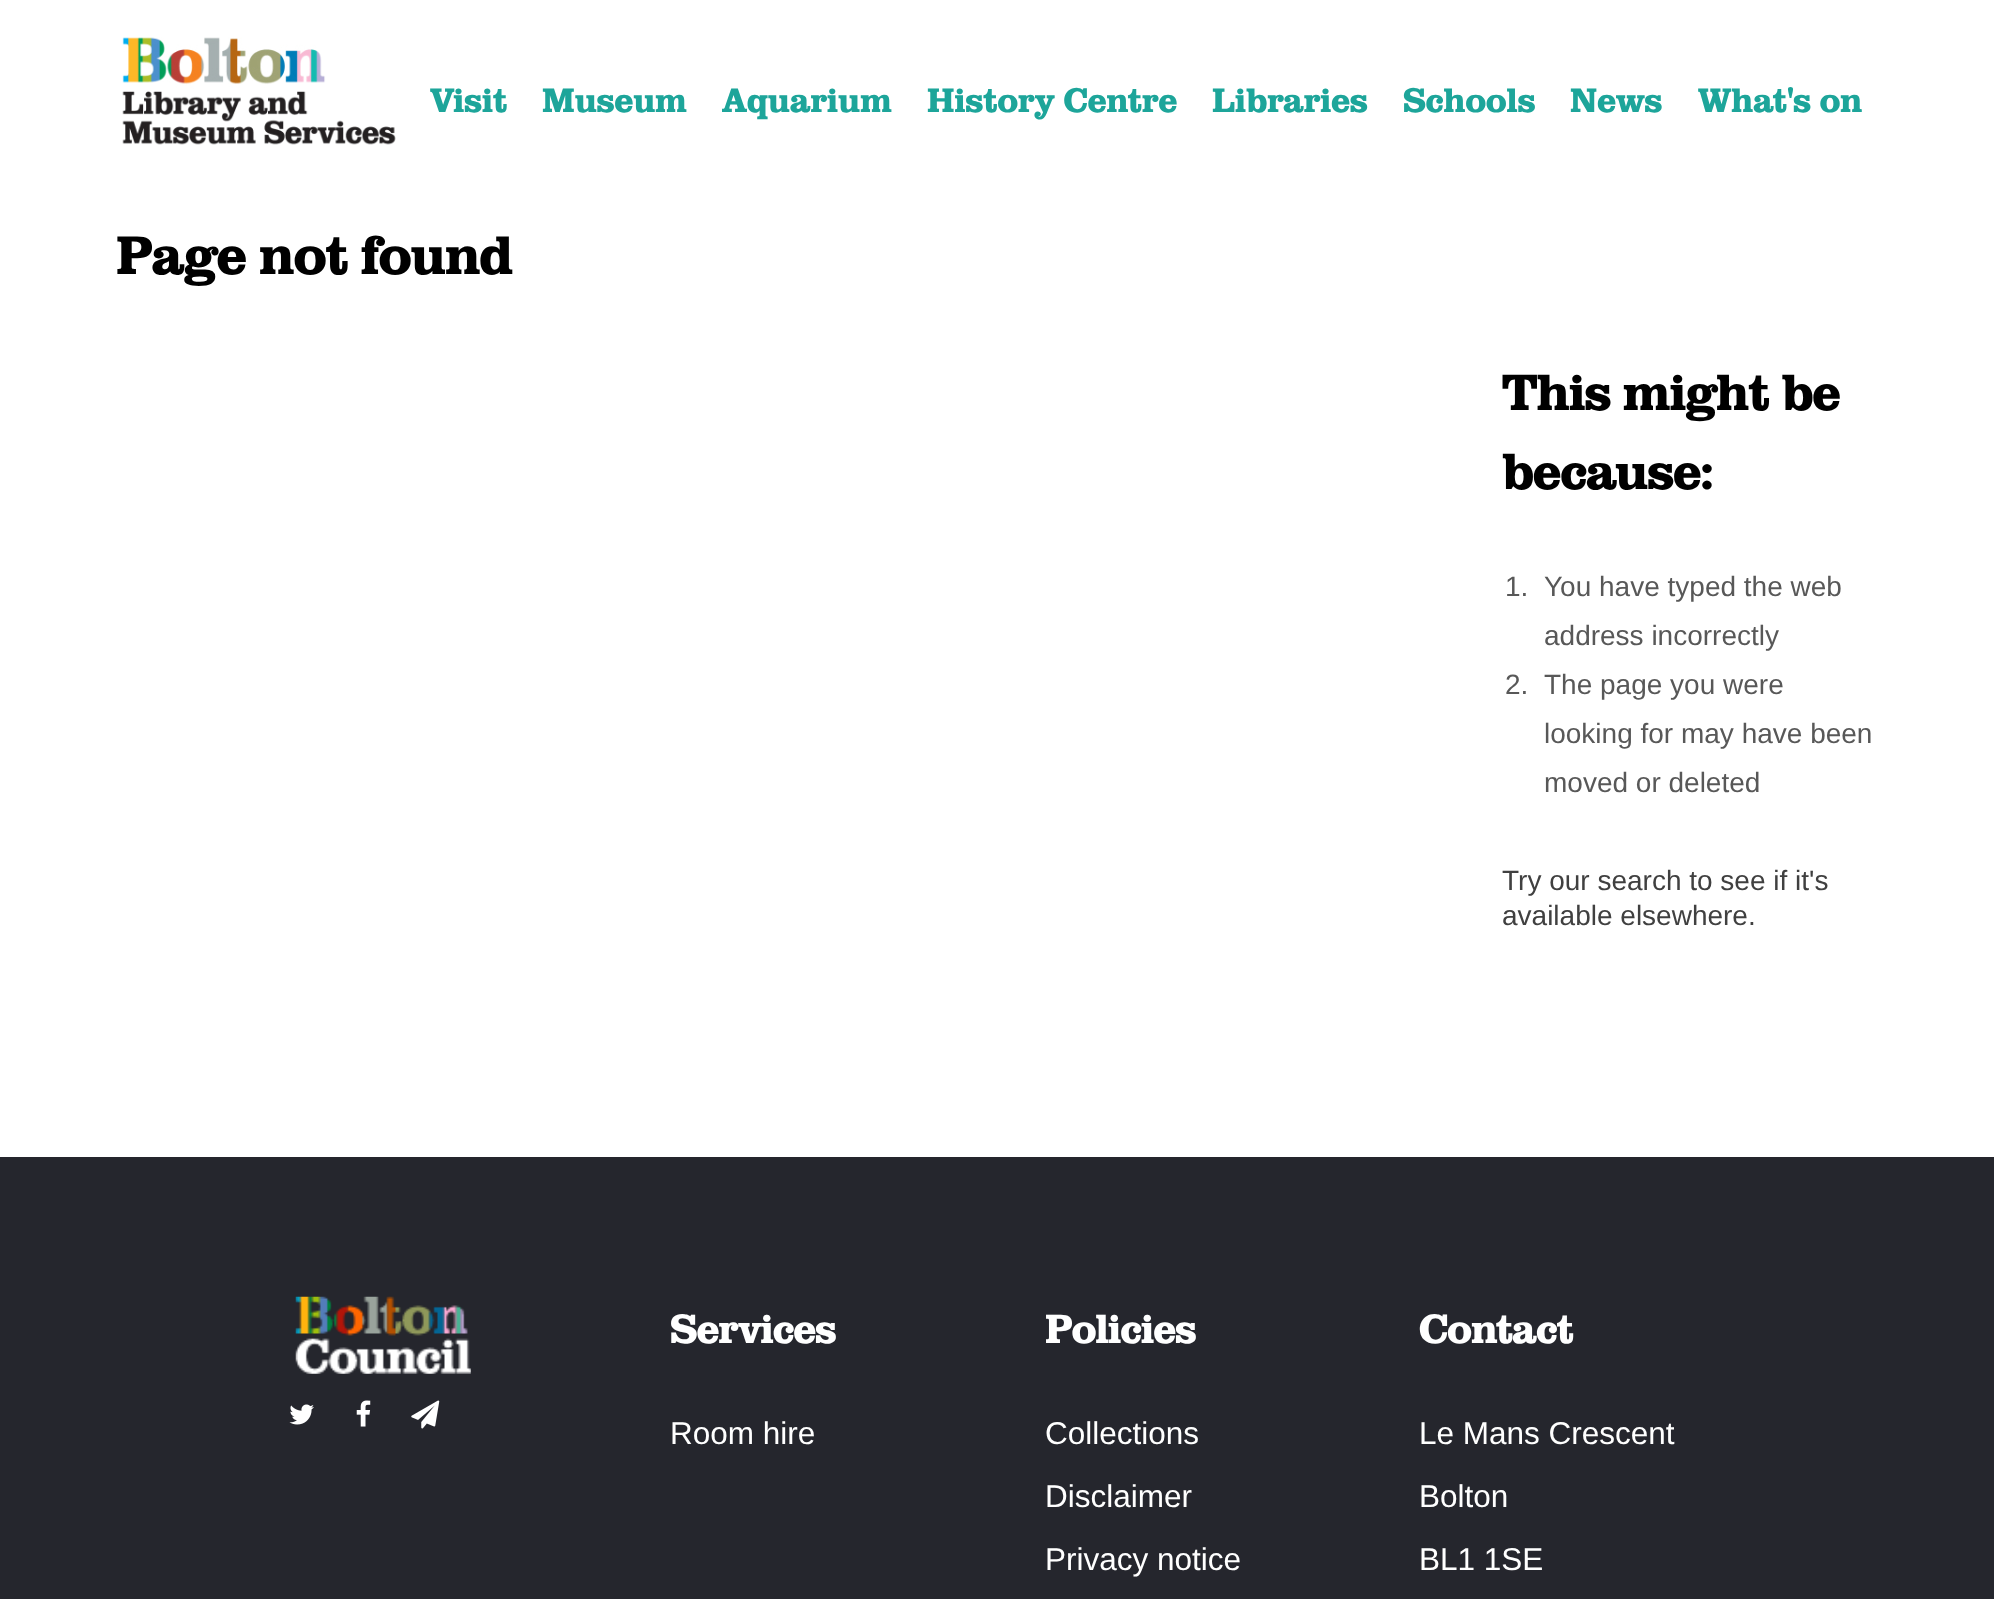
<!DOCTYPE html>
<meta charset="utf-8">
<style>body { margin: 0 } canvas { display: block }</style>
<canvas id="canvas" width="1994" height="1599"></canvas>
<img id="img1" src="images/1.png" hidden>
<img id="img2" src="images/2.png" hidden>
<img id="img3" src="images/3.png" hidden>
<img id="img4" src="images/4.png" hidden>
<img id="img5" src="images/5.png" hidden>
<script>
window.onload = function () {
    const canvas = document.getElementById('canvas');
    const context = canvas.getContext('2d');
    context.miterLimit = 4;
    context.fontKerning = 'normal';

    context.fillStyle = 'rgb(255, 255, 255)';
    context.fillRect(0, 0, 1994, 1599);
    context.drawImage(document.getElementById('img1'), 122, 37, 274, 108);
    context.fillStyle = 'rgb(37, 38, 45)';
    context.fillRect(0, 1157, 1994, 442);
    context.drawImage(document.getElementById('img2'), 295, 1296, 176, 78);
    context.drawImage(document.getElementById('img3'), 289, 1404, 25, 21);
    context.drawImage(document.getElementById('img4'), 356, 1400, 15, 27);
    context.drawImage(document.getElementById('img5'), 411, 1400, 29, 29);
    context.font = '35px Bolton';
    context.fillStyle = 'rgb(29, 165, 154)';
    context.fillText('Visit', 430, 112);
    context.fillText('Museum', 542, 112);
    context.fillText('Aquarium', 722, 112);
    context.fillText('History Centre', 927, 112);
    context.fillText('Libraries', 1212, 112);
    context.fillText('Schools', 1403, 112);
    context.fillText('News', 1570, 112);
    context.fillText('What\'s on', 1698, 112);
    context.letterSpacing = '-0.8px';
    context.font = '56px Bolton';
    context.fillStyle = 'rgb(0, 0, 0)';
    context.fillText('Page not found', 116, 274);
    context.letterSpacing = '-0.75px';
    context.font = '52.5px Bolton';
    context.fillText('This might be', 1502, 410);
    context.fillText('because:', 1502, 489);
    context.letterSpacing = '0px';
    context.font = '28px Liberation Sans';
    context.fillStyle = 'rgb(88, 88, 88)';
    context.fillText('1.', 1505, 596);
    context.fillText('You have typed the web', 1544, 596);
    context.fillText('address incorrectly', 1544, 645);
    context.fillText('2.', 1505, 694);
    context.fillText('The page you were', 1544, 694);
    context.fillText('looking for may have been', 1544, 743);
    context.fillText('moved or deleted', 1544, 792);
    context.fillStyle = 'rgb(64, 64, 64)';
    context.fillText('Try our search to see if it\'s', 1502, 890);
    context.fillText('available elsewhere.', 1502, 925);
    context.letterSpacing = '-0.75px';
    context.font = '42px Bolton';
    context.fillStyle = 'rgb(255, 255, 255)';
    context.fillText('Services', 670, 1343);
    context.letterSpacing = '0px';
    context.font = '31.5px Liberation Sans';
    context.fillText('Room hire', 670, 1444);
    context.letterSpacing = '-0.75px';
    context.font = '42px Bolton';
    context.fillText('Policies', 1045, 1343);
    context.letterSpacing = '0px';
    context.font = '31.5px Liberation Sans';
    context.fillText('Collections', 1045, 1444);
    context.fillText('Disclaimer', 1045, 1507);
    context.fillText('Privacy notice', 1045, 1570);
    context.letterSpacing = '-0.75px';
    context.font = '42px Bolton';
    context.fillText('Contact', 1419, 1343);
    context.letterSpacing = '0px';
    context.font = '31.5px Liberation Sans';
    context.fillText('Le Mans Crescent', 1419, 1444);
    context.fillText('Bolton', 1419, 1507);
    context.fillText('BL1 1SE', 1419, 1570);
};
</script>
